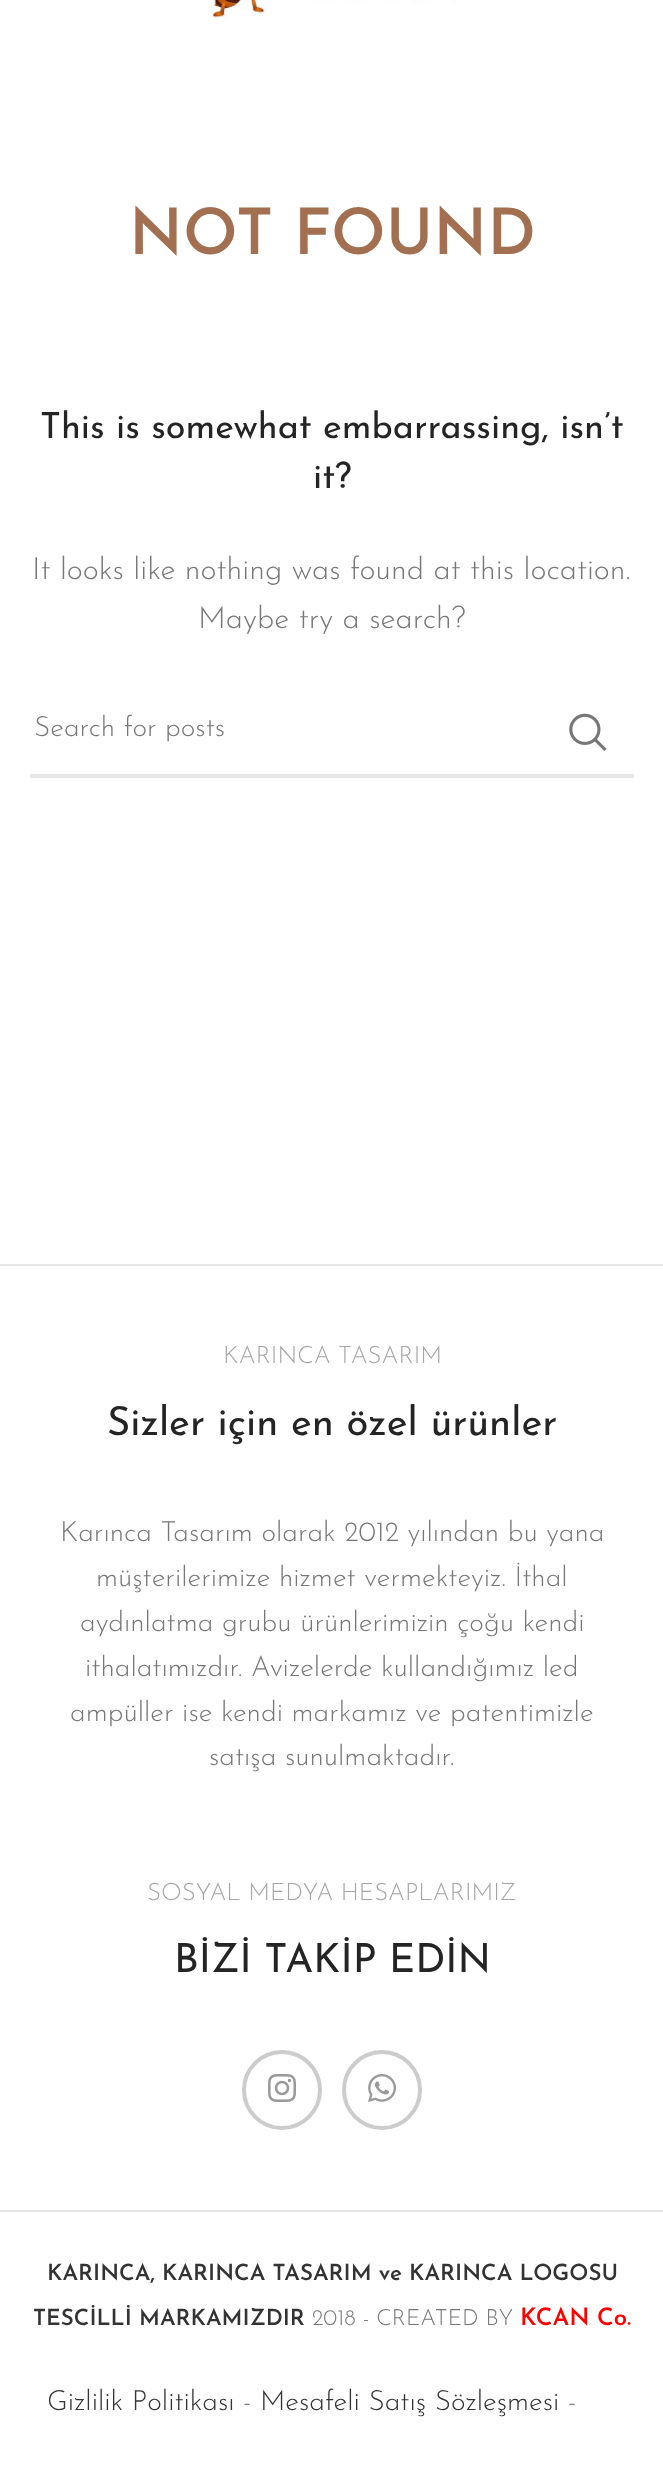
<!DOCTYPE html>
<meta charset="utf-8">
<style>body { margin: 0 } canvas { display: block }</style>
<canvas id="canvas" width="663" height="2465"></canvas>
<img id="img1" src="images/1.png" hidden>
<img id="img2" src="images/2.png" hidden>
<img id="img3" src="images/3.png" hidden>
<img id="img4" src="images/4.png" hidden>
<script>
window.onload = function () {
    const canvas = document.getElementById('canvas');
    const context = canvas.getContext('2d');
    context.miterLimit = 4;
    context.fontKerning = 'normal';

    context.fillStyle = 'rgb(255, 255, 255)';
    context.fillRect(0, 0, 663, 2465);
    context.drawImage(document.getElementById('img1'), 211, 0, 247, 19);
    context.fillStyle = 'rgb(230, 230, 230)';
    context.fillRect(30, 774, 604, 4);
    context.drawImage(document.getElementById('img2'), 569, 713, 38, 38);
    context.fillRect(0, 1264, 663, 2);
    context.beginPath();
    context.arc(282, 2090, 38, 0, 2 * Math.PI);
    context.strokeStyle = 'rgb(204, 204, 204)';
    context.lineWidth = 4;
    context.stroke();
    context.drawImage(document.getElementById('img3'), 268, 2074, 28, 28);
    context.beginPath();
    context.arc(382, 2090, 38, 0, 2 * Math.PI);
    context.stroke();
    context.drawImage(document.getElementById('img4'), 368, 2074, 28, 28);
    context.fillStyle = 'rgb(228, 228, 228)';
    context.fillRect(0, 2210, 663, 2);
    context.font = '600 64px Josefin Sans';
    context.fillStyle = 'rgb(163, 111, 81)';
    context.fillText('NOT FOUND', 129, 254);
    context.font = '36px Josefin Sans';
    context.fillStyle = 'rgb(36, 36, 36)';
    context.fillText('This is somewhat embarrassing, isn’t', 40, 438);
    context.fillText('it?', 313, 488);
    context.font = '300 30.75px Josefin Sans';
    context.fillStyle = 'rgb(119, 119, 119)';
    context.fillText('It looks like nothing was found at this location.', 32, 579);
    context.fillText('Maybe try a search?', 198, 628);
    context.font = '300 28px Josefin Sans';
    context.fillText('Search for posts', 34, 736);
    context.font = '300 24px Josefin Sans';
    context.fillStyle = 'rgb(165, 165, 165)';
    context.fillText('KARINCA TASARIM', 223, 1363);
    context.font = '40px Josefin Sans';
    context.fillStyle = 'rgb(36, 36, 36)';
    context.fillText('Sizler için en özel ürünler', 107, 1435);
    context.font = '300 28px Josefin Sans';
    context.fillStyle = 'rgb(119, 119, 119)';
    context.fillText('Karınca Tasarım olarak 2012 yılından bu yana', 60, 1541);
    context.fillText('müşterilerimize hizmet vermekteyiz. İthal', 96, 1586);
    context.fillText('aydınlatma grubu ürünlerimizin çoğu kendi', 80, 1631);
    context.fillText('ithalatımızdır. Avizelerde kullandığımız led', 85, 1676);
    context.fillText('ampüller ise kendi markamız ve patentimizle', 70, 1721);
    context.fillText('satışa sunulmaktadır.', 209, 1765);
    context.font = '300 24px Josefin Sans';
    context.fillStyle = 'rgb(165, 165, 165)';
    context.fillText('SOSYAL MEDYA HESAPLARIMIZ', 147, 1900);
    context.font = '40px Josefin Sans';
    context.fillStyle = 'rgb(36, 36, 36)';
    context.fillText('BİZİ TAKİP EDİN', 174, 1972);
    context.font = '600 22.4px Josefin Sans';
    context.fillStyle = 'rgb(51, 51, 51)';
    context.fillText('KARINCA, KARINCA TASARIM ve KARINCA LOGOSU', 47, 2280);
    context.fillText('TESCİLLİ MARKAMIZDIR', 33, 2325);
    context.font = '300 22.4px Josefin Sans';
    context.fillStyle = 'rgb(119, 119, 119)';
    context.fillText('2018 - CREATED BY', 312, 2325);
    context.font = '600 24px Josefin Sans';
    context.fillStyle = 'rgb(255, 0, 0)';
    context.fillText('KCAN Co.', 520, 2325);
    context.font = '300 28px Josefin Sans';
    context.fillStyle = 'rgb(51, 51, 51)';
    context.fillText('Gizlilik Politikası', 47, 2410);
    context.fillStyle = 'rgb(119, 119, 119)';
    context.fillText('-', 243, 2410);
    context.fillStyle = 'rgb(51, 51, 51)';
    context.fillText('Mesafeli Satış Sözleşmesi', 260, 2410);
    context.fillStyle = 'rgb(119, 119, 119)';
    context.fillText('-', 568, 2410);
};
</script>
